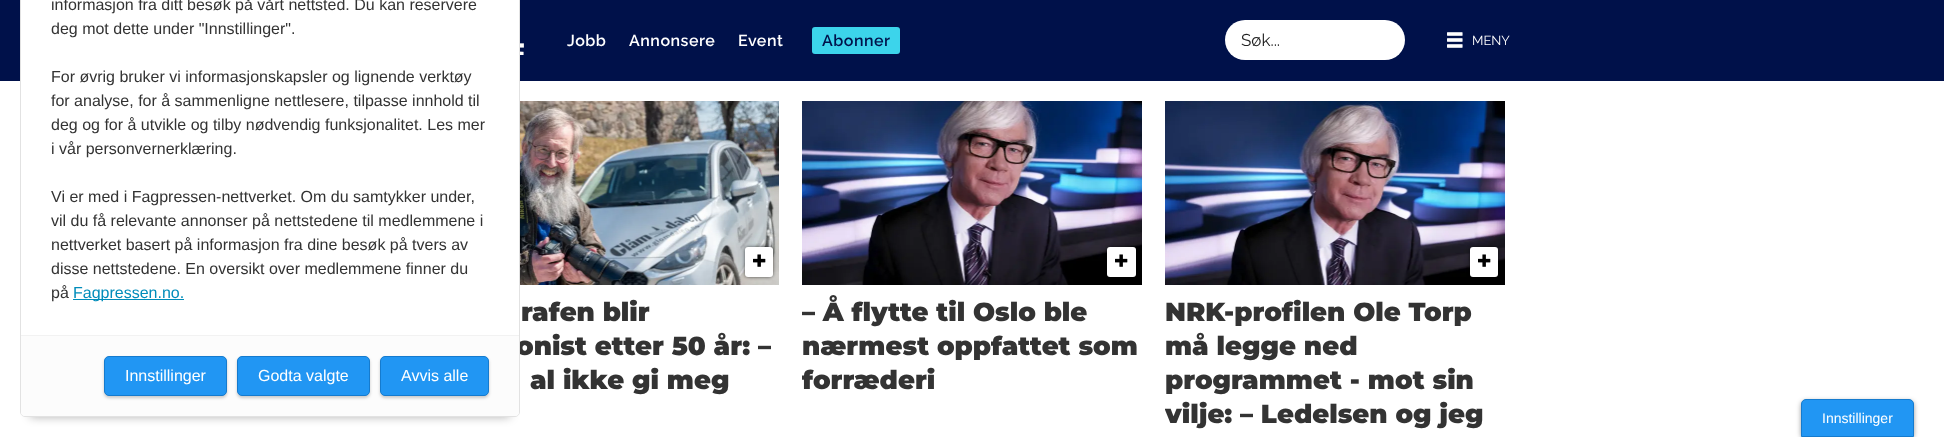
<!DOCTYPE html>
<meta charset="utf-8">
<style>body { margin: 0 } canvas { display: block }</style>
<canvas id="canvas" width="1944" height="437"></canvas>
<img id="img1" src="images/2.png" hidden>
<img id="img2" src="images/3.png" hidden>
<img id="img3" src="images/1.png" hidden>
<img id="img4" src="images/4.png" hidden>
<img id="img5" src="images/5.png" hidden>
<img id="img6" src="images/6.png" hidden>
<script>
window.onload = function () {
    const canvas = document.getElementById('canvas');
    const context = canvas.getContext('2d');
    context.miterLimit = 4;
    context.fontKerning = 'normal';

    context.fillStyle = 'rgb(255, 255, 255)';
    context.fillRect(0, 0, 1944, 437);
    context.fillStyle = 'rgb(0, 17, 74)';
    context.fillRect(0, 0, 1944, 81);
    context.drawImage(document.getElementById('img1'), 520, 43, 4, 12);
    context.drawImage(document.getElementById('img2'), 520, 101, 259, 184);
    context.fillStyle = 'rgba(0, 0, 0, 0.3)';
    context.filter = 'blur(5px)';
    context.beginPath();
    context.rect(30, -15, 480, 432);
    context.fill();
    context.filter = 'none';
    context.fillStyle = 'rgb(60, 212, 235)';
    context.beginPath();
    context.roundRect(812, 27, 88, 27, 3);
    context.fill();
    context.fillStyle = 'rgb(255, 255, 255)';
    context.beginPath();
    context.roundRect(1225, 20, 180, 40, 20);
    context.fill();
    context.drawImage(document.getElementById('img3'), 1447, 32, 16, 16);
    context.fillStyle = 'rgb(0, 0, 0)';
    context.filter = 'blur(2px)';
    context.beginPath();
    context.roundRect(746, 248, 26, 28, 2);
    context.fill();
    context.filter = 'none';
    context.fillStyle = 'rgb(255, 255, 255)';
    context.beginPath();
    context.roundRect(745, 247, 28, 30, 3);
    context.fill();
    context.drawImage(document.getElementById('img4'), 753, 254, 13, 13);
    context.drawImage(document.getElementById('img5'), 802, 101, 340, 184);
    context.fillStyle = 'rgb(0, 0, 0)';
    context.filter = 'blur(2px)';
    context.beginPath();
    context.roundRect(1108, 248, 27, 28, 2);
    context.fill();
    context.filter = 'none';
    context.fillStyle = 'rgb(255, 255, 255)';
    context.beginPath();
    context.roundRect(1107, 247, 29, 30, 3);
    context.fill();
    context.drawImage(document.getElementById('img4'), 1115, 254, 13, 13);
    context.drawImage(document.getElementById('img6'), 1165, 101, 340, 184);
    context.fillStyle = 'rgb(0, 0, 0)';
    context.filter = 'blur(2px)';
    context.beginPath();
    context.roundRect(1471, 248, 26, 28, 2);
    context.fill();
    context.filter = 'none';
    context.fillStyle = 'rgb(255, 255, 255)';
    context.beginPath();
    context.roundRect(1470, 247, 28, 30, 3);
    context.fill();
    context.drawImage(document.getElementById('img4'), 1478, 254, 13, 13);
    context.fillStyle = 'rgba(0, 0, 0, 0.4)';
    context.filter = 'blur(2.5px)';
    context.beginPath();
    context.roundRect(1801, 401, 113, 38, 5);
    context.fill();
    context.filter = 'none';
    context.fillStyle = 'rgb(33, 150, 243)';
    context.beginPath();
    context.roundRect(1801.5, 399.5, 112, 37, [4.5, 4.5, 0, 0]);
    context.fill();
    context.strokeStyle = 'rgb(21, 123, 206)';
    context.stroke();
    context.letterSpacing = '0.5px';
    context.font = '600 16px Raleway';
    context.fillStyle = 'rgb(255, 255, 255)';
    context.fillText('Jobb', 567, 46);
    context.fillText('Annonsere', 629, 46);
    context.fillText('Event', 738, 46);
    context.fillStyle = 'rgb(0, 17, 74)';
    context.fillText('Abonner', 822, 46);
    context.letterSpacing = '0px';
    context.font = '17px Raleway';
    context.fillStyle = 'rgb(34, 34, 34)';
    context.fillText('Søk...', 1241, 46);
    context.font = '13px Raleway';
    context.fillStyle = 'rgb(255, 255, 255)';
    context.fillText('MENY', 1472, 45);
    context.font = '900 26px Montserrat';
    context.fillStyle = 'rgb(51, 51, 51)';
    context.fillText('rafen blir', 521, 321);
    context.fillText('onist etter 50 år: –', 516, 355);
    context.fillStyle = 'rgb(255, 255, 255)';
    context.beginPath();
    context.roundRect(20.5, -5.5, 499, 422, 4.5);
    context.fill();
    context.strokeStyle = 'rgb(226, 226, 226)';
    context.stroke();
    context.fillStyle = 'rgb(252, 252, 252)';
    context.beginPath();
    context.roundRect(21, 335, 498, 81, [0, 0, 4, 4]);
    context.fill();
    context.fillStyle = 'rgba(0, 0, 0, 0.2)';
    context.filter = 'blur(1.5px)';
    context.beginPath();
    context.roundRect(104, 358, 123, 40, 5);
    context.fill();
    context.filter = 'none';
    context.fillStyle = 'rgb(33, 150, 243)';
    context.beginPath();
    context.roundRect(104.5, 356.5, 122, 39, 4.5);
    context.fill();
    context.strokeStyle = 'rgb(21, 123, 206)';
    context.stroke();
    context.font = '16px Liberation Sans';
    context.fillStyle = 'rgb(255, 255, 255)';
    context.fillText('Innstillinger', 125, 381);
    context.fillStyle = 'rgba(0, 0, 0, 0.2)';
    context.filter = 'blur(1.5px)';
    context.beginPath();
    context.roundRect(237, 358, 133, 40, 5);
    context.fill();
    context.filter = 'none';
    context.fillStyle = 'rgb(33, 150, 243)';
    context.beginPath();
    context.roundRect(237.5, 356.5, 132, 39, 4.5);
    context.fill();
    context.stroke();
    context.fillStyle = 'rgb(255, 255, 255)';
    context.fillText('Godta valgte', 258, 381);
    context.fillStyle = 'rgba(0, 0, 0, 0.2)';
    context.filter = 'blur(1.5px)';
    context.beginPath();
    context.roundRect(380, 358, 109, 40, 5);
    context.fill();
    context.filter = 'none';
    context.fillStyle = 'rgb(33, 150, 243)';
    context.beginPath();
    context.roundRect(380.5, 356.5, 108, 39, 4.5);
    context.fill();
    context.stroke();
    context.fillStyle = 'rgb(255, 255, 255)';
    context.fillText('Avvis alle', 401, 381);
    context.fillStyle = 'rgb(242, 242, 242)';
    context.fillRect(21, 335, 498, 1);
    context.fillStyle = 'rgb(0, 140, 186)';
    context.fillRect(73, 299, 111, 1);
    context.fillText('Fagpressen.no.', 73, 298);
    context.fillStyle = 'rgb(51, 51, 51)';
    context.fillText('på', 51, 298);
    context.fillText('disse nettstedene. En oversikt over medlemmene finner du', 51, 274);
    context.fillText('nettverket basert på informasjon fra dine besøk på tvers av', 51, 250);
    context.fillText('vil du få relevante annonser på nettstedene til medlemmene i', 51, 226);
    context.fillText('Vi er med i Fagpressen-nettverket. Om du samtykker under,', 51, 202);
    context.fillText('i vår personvernerklæring.', 51, 154);
    context.fillText('deg og for å utvikle og tilby nødvendig funksjonalitet. Les mer', 51, 130);
    context.fillText('for analyse, for å sammenligne nettlesere, tilpasse innhold til', 51, 106);
    context.fillText('For øvrig bruker vi informasjonskapsler og lignende verktøy', 51, 82);
    context.fillText('deg mot dette under "Innstillinger".', 51, 34);
    context.fillText('informasjon fra ditt besøk på vårt nettsted. Du kan reservere', 51, 10);
    context.font = '900 26px Montserrat';
    context.fillText('al ikke gi meg', 530, 389);
    context.save();
    context.beginPath();
    context.rect(802, 101, 340, 304);
    context.clip();
    context.fillText('– Å flytte til Oslo ble', 802, 321);
    context.restore();
    context.fillText('nærmest oppfattet som', 802, 355);
    context.save();
    context.beginPath();
    context.rect(802, 101, 340, 304);
    context.clip();
    context.fillText('forræderi', 802, 389);
    context.restore();
    context.fillText('NRK-profilen Ole Torp', 1165, 321);
    context.fillText('må legge ned', 1165, 355);
    context.fillText('programmet - mot sin', 1165, 389);
    context.save();
    context.beginPath();
    context.rect(1165, 101, 340, 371);
    context.clip();
    context.fillText('vilje: – Ledelsen og jeg', 1165, 423);
    context.restore();
    context.font = '14px Liberation Sans';
    context.fillStyle = 'rgb(255, 255, 255)';
    context.fillText('Innstillinger', 1822, 423);
};
</script>
